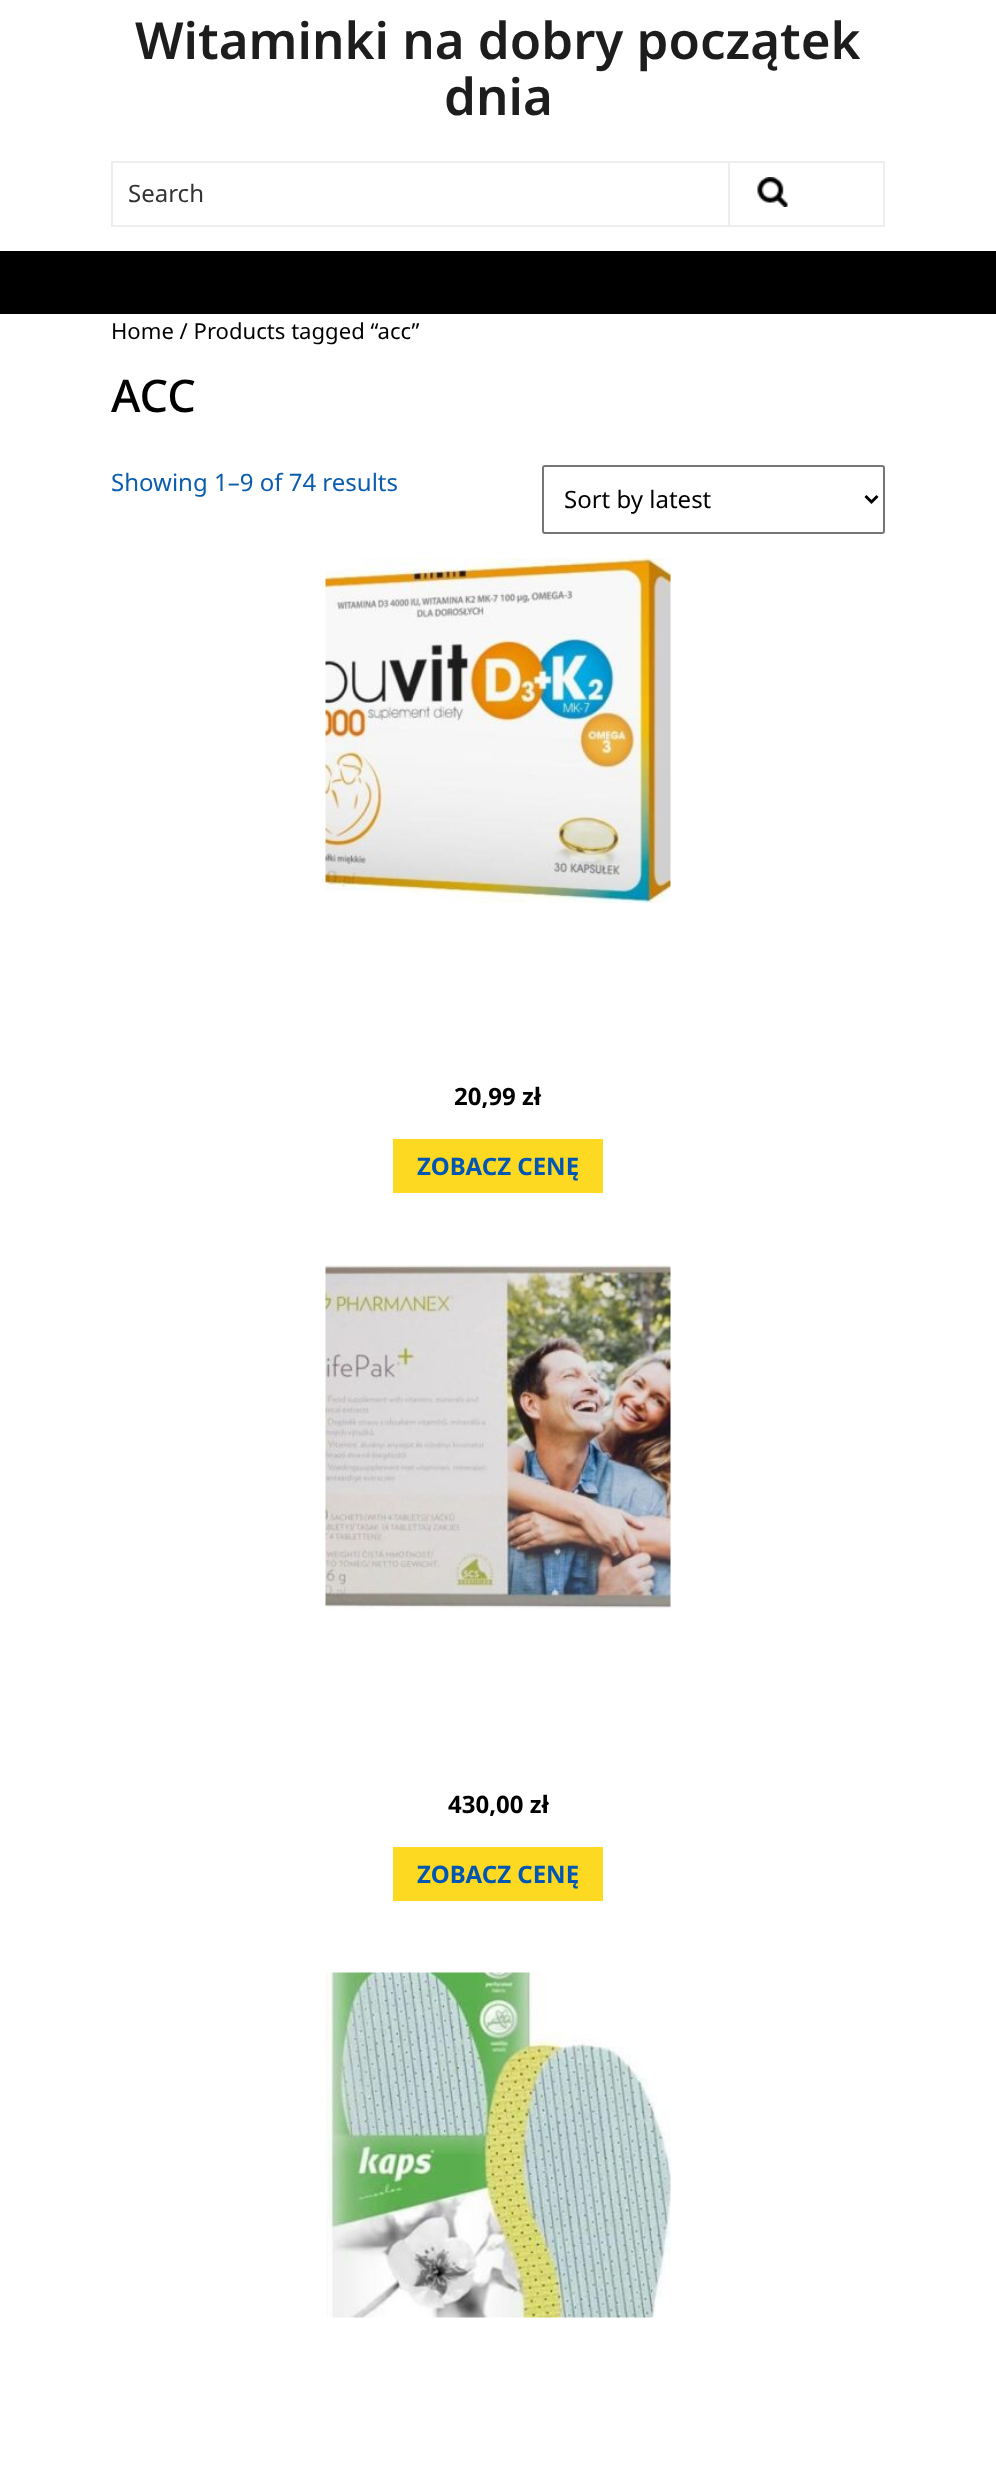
<!DOCTYPE html>
<meta charset="utf-8">
<style>body { margin: 0 } canvas { display: block }</style>
<canvas id="canvas" width="996" height="2484"></canvas>
<img id="img1" src="images/1.png" hidden>
<img id="img2" src="images/2.png" hidden>
<img id="img3" src="images/3.png" hidden>
<img id="img4" src="images/4.png" hidden>
<script>
window.onload = function () {
    const canvas = document.getElementById('canvas');
    const context = canvas.getContext('2d');
    context.miterLimit = 4;
    context.fontKerning = 'normal';

    context.fillStyle = 'rgb(255, 255, 255)';
    context.fillRect(0, 0, 996, 2484);
    context.strokeStyle = 'rgb(238, 238, 238)';
    context.lineWidth = 2;
    context.strokeRect(112, 162, 772, 64);
    context.fillStyle = 'rgb(238, 238, 238)';
    context.fillRect(728, 162, 2, 63);
    context.drawImage(document.getElementById('img1'), 757, 177, 31, 30);
    context.fillStyle = 'rgb(0, 0, 0)';
    context.fillRect(0, 251, 996, 63);
    context.beginPath();
    context.roundRect(543, 466, 341, 67, 2);
    context.strokeStyle = 'rgb(118, 118, 118)';
    context.stroke();
    context.beginPath();
    context.moveTo(865.5, 496);
    context.lineTo(871.5, 502);
    context.lineTo(877.5, 496);
    context.strokeStyle = 'rgb(0, 0, 0)';
    context.lineWidth = 3;
    context.stroke();
    context.drawImage(document.getElementById('img2'), 325, 558, 346, 345);
    context.fillStyle = 'rgb(253, 217, 34)';
    context.fillRect(393, 1139, 210, 54);
    context.drawImage(document.getElementById('img3'), 325, 1264, 346, 345);
    context.fillRect(393, 1847, 210, 54);
    context.drawImage(document.getElementById('img4'), 325, 1972, 346, 346);
    context.font = '600 51px Noto Sans';
    context.fillStyle = 'rgb(29, 29, 29)';
    context.fillText('Witaminki na dobry początek', 135, 59);
    context.fillText('dnia', 444, 115);
    context.font = '24px Noto Sans';
    context.fillStyle = 'rgb(51, 51, 51)';
    context.fillText('Search', 128, 202);
    context.font = '22.1px Noto Sans';
    context.fillStyle = 'rgb(0, 0, 0)';
    context.fillText('Home / Products tagged “acc”', 111, 339);
    context.font = '500 45px Noto Sans';
    context.fillText('ACC', 111, 412);
    context.font = '24px Noto Sans';
    context.fillStyle = 'rgb(11, 94, 173)';
    context.fillText('Showing 1–9 of 74 results', 111, 491);
    context.fillStyle = 'rgb(0, 0, 0)';
    context.fillText('Sort by latest', 564, 508);
    context.font = 'bold 24px Noto Sans';
    context.fillText('20,99 zł', 454, 1105);
    context.fillStyle = 'rgb(0, 86, 179)';
    context.fillText('ZOBACZ CENĘ', 417, 1175);
    context.fillStyle = 'rgb(0, 0, 0)';
    context.fillText('430,00 zł', 448, 1813);
    context.fillStyle = 'rgb(0, 86, 179)';
    context.fillText('ZOBACZ CENĘ', 417, 1883);
};
</script>
